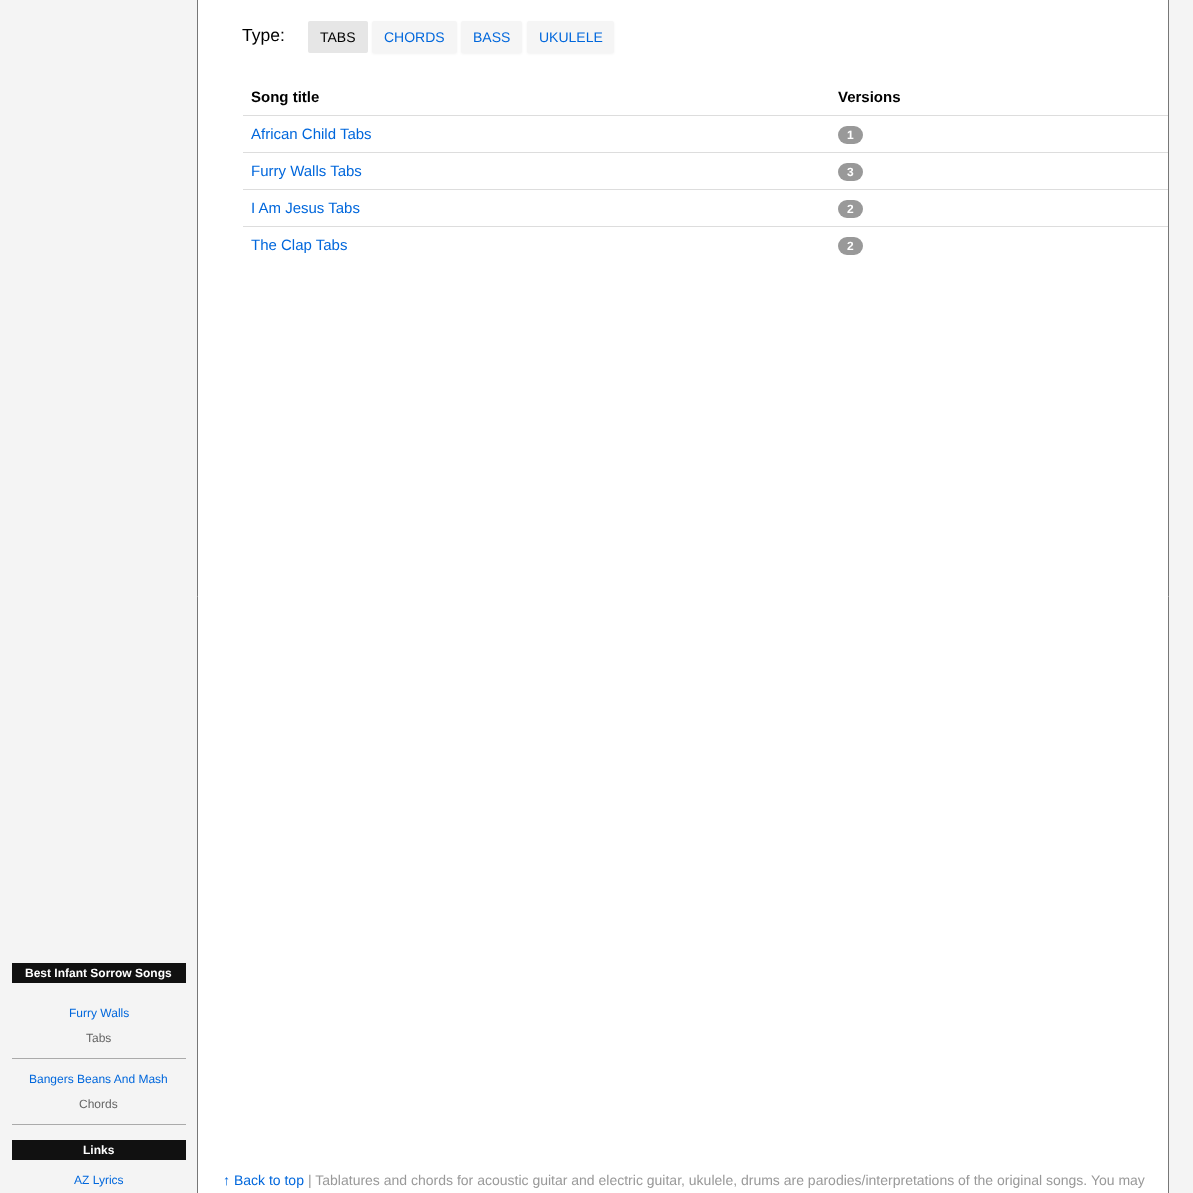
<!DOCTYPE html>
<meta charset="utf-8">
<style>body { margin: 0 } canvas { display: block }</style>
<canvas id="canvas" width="1193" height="1193"></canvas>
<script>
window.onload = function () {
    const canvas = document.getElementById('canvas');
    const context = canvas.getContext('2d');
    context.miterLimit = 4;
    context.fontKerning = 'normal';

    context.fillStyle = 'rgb(244, 244, 244)';
    context.fillRect(0, 0, 1193, 1193);
    context.fillStyle = 'rgb(17, 17, 17)';
    context.fillRect(12, 963, 174, 20);
    context.fillStyle = 'rgb(170, 170, 170)';
    context.fillRect(12, 1058, 174, 1);
    context.fillRect(12, 1124, 174, 1);
    context.fillStyle = 'rgb(17, 17, 17)';
    context.fillRect(12, 1140, 174, 20);
    context.fillStyle = 'rgb(255, 255, 255)';
    context.beginPath();
    context.rect(197.5, -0.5, 971, 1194);
    context.fill();
    context.strokeStyle = 'rgb(119, 119, 119)';
    context.stroke();
    context.fillStyle = 'rgb(230, 230, 230)';
    context.beginPath();
    context.roundRect(308, 21, 60, 32, 2);
    context.fill();
    context.fillStyle = 'rgba(0, 0, 0, 0.05)';
    context.filter = 'blur(1px)';
    context.beginPath();
    context.roundRect(372, 22, 85, 32, 2);
    context.fill();
    context.filter = 'none';
    context.fillStyle = 'rgb(245, 245, 245)';
    context.beginPath();
    context.roundRect(372, 21, 85, 32, 2);
    context.fill();
    context.fillStyle = 'rgba(0, 0, 0, 0.05)';
    context.filter = 'blur(1px)';
    context.beginPath();
    context.roundRect(461, 22, 61, 32, 2);
    context.fill();
    context.filter = 'none';
    context.fillStyle = 'rgb(245, 245, 245)';
    context.beginPath();
    context.roundRect(461, 21, 61, 32, 2);
    context.fill();
    context.fillStyle = 'rgba(0, 0, 0, 0.05)';
    context.filter = 'blur(1px)';
    context.beginPath();
    context.roundRect(527, 22, 87, 32, 2);
    context.fill();
    context.filter = 'none';
    context.fillStyle = 'rgb(245, 245, 245)';
    context.beginPath();
    context.roundRect(527, 21, 87, 32, 2);
    context.fill();
    context.fillStyle = 'rgb(221, 221, 221)';
    context.fillRect(243, 115, 925, 1);
    context.fillStyle = 'rgb(153, 153, 153)';
    context.beginPath();
    context.roundRect(838, 126, 25, 18, 9);
    context.fill();
    context.fillStyle = 'rgb(221, 221, 221)';
    context.fillRect(243, 152, 925, 1);
    context.fillStyle = 'rgb(153, 153, 153)';
    context.beginPath();
    context.roundRect(838, 163, 25, 18, 9);
    context.fill();
    context.fillStyle = 'rgb(221, 221, 221)';
    context.fillRect(243, 189, 925, 1);
    context.fillStyle = 'rgb(153, 153, 153)';
    context.beginPath();
    context.roundRect(838, 200, 25, 18, 9);
    context.fill();
    context.fillStyle = 'rgb(221, 221, 221)';
    context.fillRect(243, 226, 925, 1);
    context.fillStyle = 'rgb(153, 153, 153)';
    context.beginPath();
    context.roundRect(838, 237, 25, 18, 9);
    context.fill();
    context.font = 'bold 12px Liberation Sans';
    context.fillStyle = 'rgb(255, 255, 255)';
    context.fillText('Best Infant Sorrow Songs', 25, 977);
    context.font = '12px Liberation Sans';
    context.fillStyle = 'rgb(0, 103, 220)';
    context.fillText('Furry Walls', 69, 1017);
    context.fillStyle = 'rgb(102, 102, 102)';
    context.fillText('Tabs', 86, 1042);
    context.fillStyle = 'rgb(0, 103, 220)';
    context.fillText('Bangers Beans And Mash', 29, 1083);
    context.fillStyle = 'rgb(102, 102, 102)';
    context.fillText('Chords', 79, 1108);
    context.font = 'bold 12px Liberation Sans';
    context.fillStyle = 'rgb(255, 255, 255)';
    context.fillText('Links', 83, 1154);
    context.font = '12px Liberation Sans';
    context.fillStyle = 'rgb(0, 103, 220)';
    context.fillText('AZ Lyrics', 74, 1184);
    context.font = '17.5px Liberation Sans';
    context.fillStyle = 'rgb(0, 0, 0)';
    context.fillText('Type:', 242, 41);
    context.font = '14px Liberation Sans';
    context.fillText('TABS', 320, 42);
    context.fillStyle = 'rgb(0, 103, 220)';
    context.fillText('CHORDS', 384, 42);
    context.fillText('BASS', 473, 42);
    context.fillText('UKULELE', 539, 42);
    context.font = 'bold 15px Liberation Sans';
    context.fillStyle = 'rgb(0, 0, 0)';
    context.fillText('Song title', 251, 102);
    context.fillText('Versions', 838, 102);
    context.font = '15px Liberation Sans';
    context.fillStyle = 'rgb(0, 103, 220)';
    context.fillText('African Child Tabs', 251, 139);
    context.font = 'bold 12px Liberation Sans';
    context.fillStyle = 'rgb(255, 255, 255)';
    context.fillText('1', 847, 139);
    context.font = '15px Liberation Sans';
    context.fillStyle = 'rgb(0, 103, 220)';
    context.fillText('Furry Walls Tabs', 251, 176);
    context.font = 'bold 12px Liberation Sans';
    context.fillStyle = 'rgb(255, 255, 255)';
    context.fillText('3', 847, 176);
    context.font = '15px Liberation Sans';
    context.fillStyle = 'rgb(0, 103, 220)';
    context.fillText('I Am Jesus Tabs', 251, 213);
    context.font = 'bold 12px Liberation Sans';
    context.fillStyle = 'rgb(255, 255, 255)';
    context.fillText('2', 847, 213);
    context.font = '15px Liberation Sans';
    context.fillStyle = 'rgb(0, 103, 220)';
    context.fillText('The Clap Tabs', 251, 250);
    context.font = 'bold 12px Liberation Sans';
    context.fillStyle = 'rgb(255, 255, 255)';
    context.fillText('2', 847, 250);
    context.font = '14px Liberation Sans';
    context.fillStyle = 'rgb(0, 103, 220)';
    context.fillText('↑ Back to top', 223, 1185);
    context.fillStyle = 'rgb(153, 153, 153)';
    context.fillText('| Tablatures and chords for acoustic guitar and electric guitar, ukulele, drums are parodies/interpretations of the original songs. You may', 308, 1185);
};
</script>
